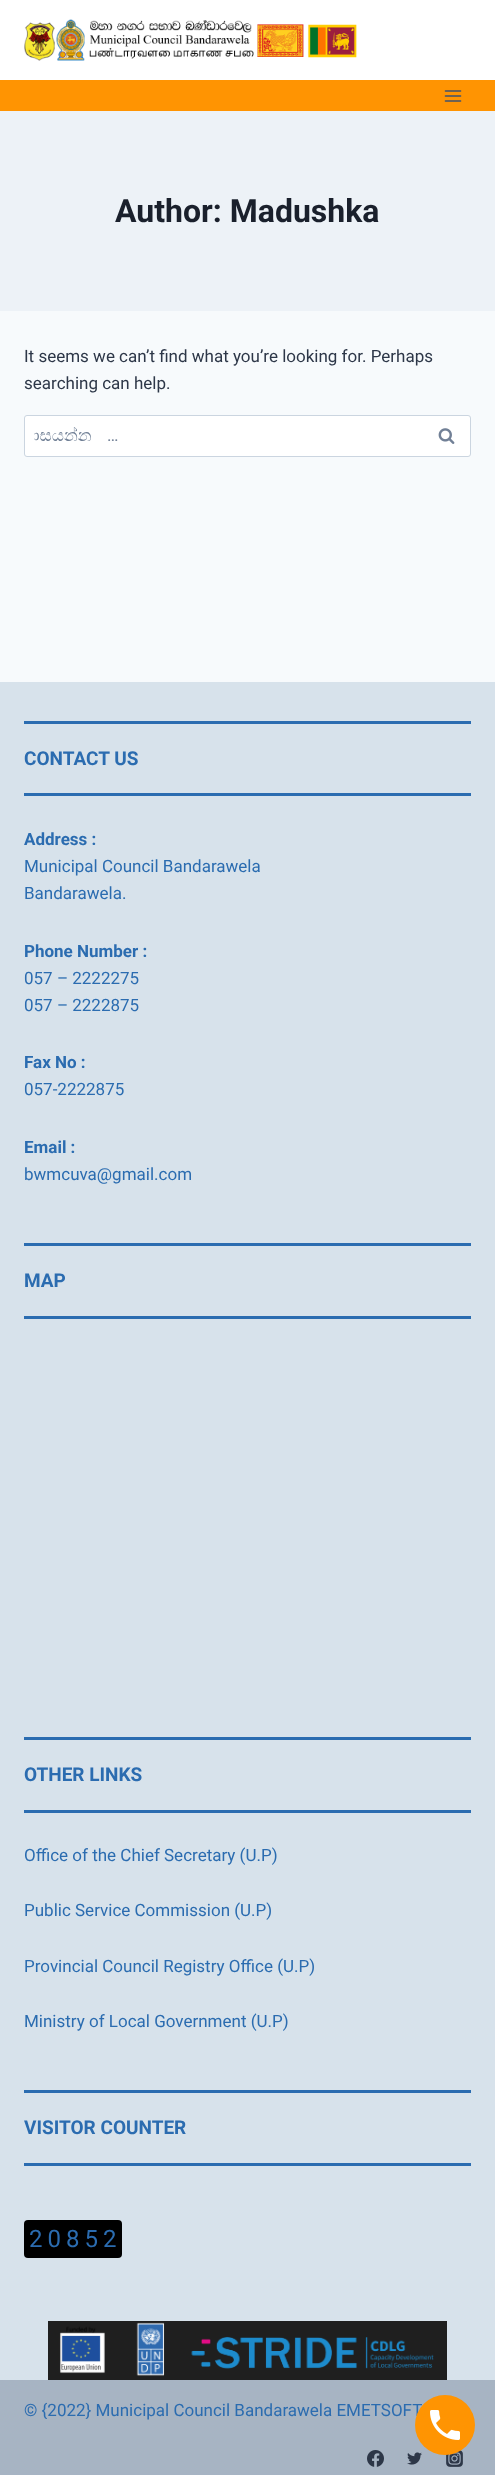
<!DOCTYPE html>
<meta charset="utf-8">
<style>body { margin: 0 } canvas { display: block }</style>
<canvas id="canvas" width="495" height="2475"></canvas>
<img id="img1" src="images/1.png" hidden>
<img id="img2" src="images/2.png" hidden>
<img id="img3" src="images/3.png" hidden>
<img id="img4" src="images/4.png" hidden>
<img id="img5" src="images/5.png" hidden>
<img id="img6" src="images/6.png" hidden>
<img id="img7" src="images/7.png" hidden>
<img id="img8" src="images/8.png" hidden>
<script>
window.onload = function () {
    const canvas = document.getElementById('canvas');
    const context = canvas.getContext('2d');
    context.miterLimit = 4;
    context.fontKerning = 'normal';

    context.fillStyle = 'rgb(247, 250, 252)';
    context.fillRect(0, 0, 495, 2475);
    context.fillStyle = 'rgb(255, 255, 255)';
    context.fillRect(0, 0, 495, 80);
    context.drawImage(document.getElementById('img1'), 24, 19, 333, 42);
    context.fillStyle = 'rgb(255, 148, 2)';
    context.fillRect(0, 80, 495, 31);
    context.drawImage(document.getElementById('img2'), 444, 90, 18, 12);
    context.fillStyle = 'rgb(237, 242, 247)';
    context.fillRect(0, 111, 495, 200);
    context.fillStyle = 'rgb(255, 255, 255)';
    context.beginPath();
    context.roundRect(24.5, 415.5, 446, 41, 2.5);
    context.fill();
    context.strokeStyle = 'rgb(203, 213, 224)';
    context.stroke();
    context.drawImage(document.getElementById('img3'), 438, 428, 17, 16);
    context.fillStyle = 'rgb(215, 226, 235)';
    context.fillRect(0, 682, 495, 1698);
    context.fillStyle = 'rgb(43, 108, 176)';
    context.fillRect(24, 721, 447, 3);
    context.fillRect(24, 793, 447, 3);
    context.fillRect(24, 1243, 447, 3);
    context.fillRect(24, 1316, 447, 3);
    context.fillRect(24, 1737, 447, 3);
    context.fillRect(24, 1810, 447, 3);
    context.fillRect(24, 2090, 447, 3);
    context.fillRect(24, 2163, 447, 3);
    context.fillStyle = 'rgb(0, 0, 0)';
    context.beginPath();
    context.roundRect(24, 2220, 98, 38, 4);
    context.fill();
    context.drawImage(document.getElementById('img4'), 48, 2321, 399, 59);
    context.fillStyle = 'rgb(167, 180, 195)';
    context.fillRect(0, 2380, 495, 95);
    context.drawImage(document.getElementById('img5'), 367, 2450, 17, 17);
    context.drawImage(document.getElementById('img6'), 407, 2452, 15, 13);
    context.drawImage(document.getElementById('img7'), 446, 2450, 17, 17);
    context.font = 'bold 32px Roboto';
    context.fillStyle = 'rgb(26, 32, 44)';
    context.fillText('Author: Madushka', 115, 222);
    context.font = '17px Roboto';
    context.fillStyle = 'rgb(45, 55, 72)';
    context.fillText('It seems we can’t find what you’re looking for. Perhaps', 24, 362);
    context.fillText('searching can help.', 24, 389);
    context.font = '17px FreeSerif';
    context.fillStyle = 'rgb(113, 128, 150)';
    context.fillText('සොයන්න', 34, 441);
    context.font = '17px Roboto';
    context.fillText('…', 107, 441);
    context.font = 'bold 19px Roboto';
    context.fillStyle = 'rgb(43, 108, 176)';
    context.fillText('CONTACT US', 24, 765);
    context.font = 'bold 17px Roboto';
    context.fillText('Address :', 24, 845);
    context.font = '17px Roboto';
    context.fillText('Municipal Council Bandarawela', 24, 872);
    context.fillText('Bandarawela.', 24, 899);
    context.font = 'bold 17px Roboto';
    context.fillText('Phone Number :', 24, 957);
    context.font = '17px Roboto';
    context.fillText('057 – 2222275', 24, 984);
    context.fillText('057 – 2222875', 24, 1011);
    context.font = 'bold 17px Roboto';
    context.fillText('Fax No :', 24, 1068);
    context.font = '17px Roboto';
    context.fillText('057-2222875', 24, 1095);
    context.font = 'bold 17px Roboto';
    context.fillText('Email :', 24, 1153);
    context.font = '17px Roboto';
    context.fillText('bwmcuva@gmail.com', 24, 1180);
    context.font = 'bold 19px Roboto';
    context.fillText('MAP', 24, 1287);
    context.fillText('OTHER LINKS', 24, 1781);
    context.font = '17px Roboto';
    context.fillText('Office of the Chief Secretary (U.P)', 24, 1861);
    context.fillText('Public Service Commission (U.P)', 24, 1916);
    context.fillText('Provincial Council Registry Office (U.P)', 24, 1972);
    context.fillText('Ministry of Local Government (U.P)', 24, 2027);
    context.font = 'bold 19px Roboto';
    context.fillText('VISITOR COUNTER', 24, 2134);
    context.letterSpacing = '5px';
    context.font = '24px Roboto';
    context.fillText('20852', 29, 2247);
    context.letterSpacing = '0px';
    context.font = '17px Roboto';
    context.fillText('© {2022} Municipal Council Bandarawela EMETSOFT', 24, 2416);
    context.fillStyle = 'rgb(255, 148, 2)';
    context.beginPath();
    context.arc(445, 2425, 30, 0, 2 * Math.PI);
    context.fill();
    context.drawImage(document.getElementById('img8'), 430, 2410, 30, 30);
};
</script>
